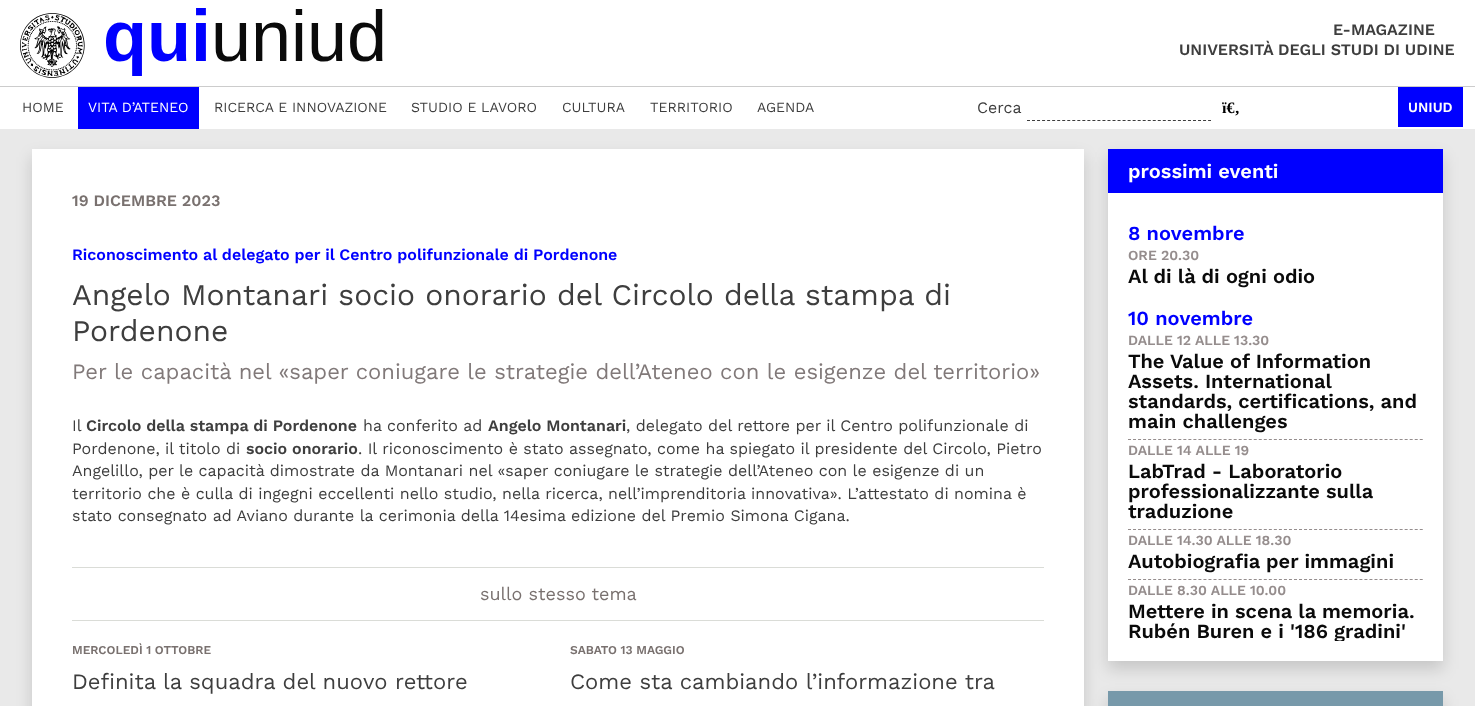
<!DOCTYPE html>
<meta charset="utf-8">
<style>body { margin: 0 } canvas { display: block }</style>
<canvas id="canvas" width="1475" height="706"></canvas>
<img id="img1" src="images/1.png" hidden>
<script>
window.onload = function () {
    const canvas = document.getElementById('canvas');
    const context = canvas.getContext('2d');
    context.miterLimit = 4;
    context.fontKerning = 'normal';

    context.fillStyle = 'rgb(255, 255, 255)';
    context.fillRect(0, 0, 1475, 706);
    context.drawImage(document.getElementById('img1'), 20, 8, 363, 70);
    context.fillStyle = 'rgb(204, 204, 204)';
    context.fillRect(0, 86, 1475, 1);
    context.fillStyle = 'rgb(0, 0, 255)';
    context.fillRect(78, 87, 121, 42);
    context.beginPath();
    context.moveTo(1027, 120.5);
    context.lineTo(1211, 120.5);
    context.strokeStyle = 'rgb(62, 62, 62)';
    context.setLineDash([3, 2.03]);
    context.stroke();
    context.fillRect(1398, 87, 65, 40);
    context.fillStyle = 'rgb(233, 233, 233)';
    context.fillRect(0, 129, 1475, 577);
    context.fillStyle = 'rgba(0, 0, 0, 0.15)';
    context.filter = 'blur(8px)';
    context.beginPath();
    context.rect(32, 157, 1052, 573);
    context.fill();
    context.filter = 'none';
    context.fillStyle = 'rgb(255, 255, 255)';
    context.fillRect(32, 149, 1052, 557);
    context.fillStyle = 'rgb(218, 220, 215)';
    context.fillRect(72, 567, 972, 1);
    context.fillRect(72, 620, 972, 1);
    context.fillStyle = 'rgba(0, 0, 0, 0.15)';
    context.filter = 'blur(8px)';
    context.beginPath();
    context.rect(1108, 157, 335, 512);
    context.fill();
    context.filter = 'none';
    context.fillStyle = 'rgb(255, 255, 255)';
    context.fillRect(1108, 193, 335, 468);
    context.fillStyle = 'rgb(0, 0, 255)';
    context.fillRect(1108, 149, 335, 44);
    context.beginPath();
    context.moveTo(1128, 439.5);
    context.lineTo(1423, 439.5);
    context.strokeStyle = 'rgb(149, 141, 141)';
    context.stroke();
    context.beginPath();
    context.moveTo(1128, 529.5);
    context.lineTo(1423, 529.5);
    context.stroke();
    context.beginPath();
    context.moveTo(1128, 579.5);
    context.lineTo(1423, 579.5);
    context.stroke();
    context.fillStyle = 'rgba(0, 0, 0, 0.15)';
    context.filter = 'blur(8px)';
    context.beginPath();
    context.rect(1108, 699, 335, 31);
    context.fill();
    context.filter = 'none';
    context.fillStyle = 'rgb(119, 153, 170)';
    context.fillRect(1108, 691, 335, 15);
    context.font = '600 16px Work Sans';
    context.fillStyle = 'rgb(62, 62, 62)';
    context.fillText('E-MAGAZINE', 1333, 35);
    context.fillText('UNIVERSITÀ DEGLI STUDI DI UDINE', 1179, 55);
    context.font = '14px Work Sans';
    context.fillText('HOME', 22, 112);
    context.fillStyle = 'rgb(255, 255, 255)';
    context.fillText('VITA D’ATENEO', 88, 112);
    context.fillStyle = 'rgb(62, 62, 62)';
    context.fillText('RICERCA E INNOVAZIONE', 214, 112);
    context.fillText('STUDIO E LAVORO', 411, 112);
    context.fillText('CULTURA', 562, 112);
    context.fillText('TERRITORIO', 650, 112);
    context.fillText('AGENDA', 757, 112);
    context.font = '16px Work Sans';
    context.fillText('Cerca', 977, 113);
    context.font = 'bold 16px Liberation Serif';
    context.fillStyle = 'rgb(0, 0, 0)';
    context.fillText('ï€‚', 1222, 113);
    context.font = '600 14px Work Sans';
    context.fillStyle = 'rgb(255, 255, 255)';
    context.fillText('UNIUD', 1408, 112);
    context.font = '600 16px Work Sans';
    context.fillStyle = 'rgb(121, 113, 111)';
    context.fillText('19 DICEMBRE 2023', 72, 206);
    context.fillStyle = 'rgb(0, 0, 255)';
    context.fillText('Riconoscimento al delegato per il Centro polifunzionale di Pordenone', 72, 260);
    context.font = '30px Work Sans';
    context.fillStyle = 'rgb(62, 62, 62)';
    context.fillText('Angelo Montanari socio onorario del Circolo della stampa di', 72, 305);
    context.fillText('Pordenone', 72, 341);
    context.font = '22px Work Sans';
    context.fillStyle = 'rgb(129, 121, 121)';
    context.fillText('Per le capacità nel «saper coniugare le strategie dell’Ateneo con le esigenze del territorio»', 72, 379);
    context.font = '16px Work Sans';
    context.fillStyle = 'rgb(62, 62, 62)';
    context.fillText('Il', 72, 431);
    context.font = '600 16px Work Sans';
    context.fillText('Circolo della stampa di Pordenone', 86, 431);
    context.font = '16px Work Sans';
    context.fillText('ha conferito ad', 363, 431);
    context.font = '600 16px Work Sans';
    context.fillText('Angelo Montanari', 488, 431);
    context.font = '16px Work Sans';
    context.fillText(', delegato del rettore per il Centro polifunzionale di', 626, 431);
    context.fillText('Pordenone, il titolo di', 72, 454);
    context.font = '600 16px Work Sans';
    context.fillText('socio onorario', 246, 454);
    context.font = '16px Work Sans';
    context.fillText('. Il riconoscimento è stato assegnato, come ha spiegato il presidente del Circolo, Pietro', 358, 454);
    context.fillText('Angelillo, per le capacità dimostrate da Montanari nel «saper coniugare le strategie dell’Ateneo con le esigenze di un', 72, 476);
    context.fillText('territorio che è culla di ingegni eccellenti nello studio, nella ricerca, nell’imprenditoria innovativa». L’attestato di nomina è', 72, 499);
    context.fillText('stato consegnato ad Aviano durante la cerimonia della 14esima edizione del Premio Simona Cigana.', 72, 521);
    context.font = '18px Work Sans';
    context.fillStyle = 'rgb(121, 113, 111)';
    context.fillText('sullo stesso tema', 480, 600);
    context.font = '600 12px Work Sans';
    context.fillText('MERCOLEDÌ 1 OTTOBRE', 72, 654);
    context.font = '22px Work Sans';
    context.fillStyle = 'rgb(62, 62, 62)';
    context.fillText('Definita la squadra del nuovo rettore', 72, 689);
    context.font = '600 12px Work Sans';
    context.fillStyle = 'rgb(121, 113, 111)';
    context.fillText('SABATO 13 MAGGIO', 570, 654);
    context.font = '22px Work Sans';
    context.fillStyle = 'rgb(62, 62, 62)';
    context.fillText('Come sta cambiando l’informazione tra', 570, 689);
    context.font = '600 20px Work Sans';
    context.fillStyle = 'rgb(255, 255, 255)';
    context.fillText('prossimi eventi', 1128, 178);
    context.fillStyle = 'rgb(0, 0, 255)';
    context.fillText('8 novembre', 1128, 240);
    context.font = '600 14px Work Sans';
    context.fillStyle = 'rgb(149, 141, 141)';
    context.fillText('ORE 20.30', 1128, 260);
    context.font = '600 20px Work Sans';
    context.fillStyle = 'rgb(10, 10, 10)';
    context.fillText('Al di là di ogni odio', 1128, 283);
    context.fillStyle = 'rgb(0, 0, 255)';
    context.fillText('10 novembre', 1128, 325);
    context.font = '600 14px Work Sans';
    context.fillStyle = 'rgb(149, 141, 141)';
    context.fillText('DALLE 12 ALLE 13.30', 1128, 345);
    context.font = '600 20px Work Sans';
    context.fillStyle = 'rgb(10, 10, 10)';
    context.fillText('The Value of Information', 1128, 368);
    context.fillText('Assets. International', 1128, 388);
    context.fillText('standards, certifications, and', 1128, 408);
    context.fillText('main challenges', 1128, 428);
    context.font = '600 14px Work Sans';
    context.fillStyle = 'rgb(149, 141, 141)';
    context.fillText('DALLE 14 ALLE 19', 1128, 455);
    context.font = '600 20px Work Sans';
    context.fillStyle = 'rgb(10, 10, 10)';
    context.fillText('LabTrad - Laboratorio', 1128, 478);
    context.fillText('professionalizzante sulla', 1128, 498);
    context.fillText('traduzione', 1128, 518);
    context.font = '600 14px Work Sans';
    context.fillStyle = 'rgb(149, 141, 141)';
    context.fillText('DALLE 14.30 ALLE 18.30', 1128, 545);
    context.font = '600 20px Work Sans';
    context.fillStyle = 'rgb(10, 10, 10)';
    context.fillText('Autobiografia per immagini', 1128, 568);
    context.font = '600 14px Work Sans';
    context.fillStyle = 'rgb(149, 141, 141)';
    context.fillText('DALLE 8.30 ALLE 10.00', 1128, 595);
    context.font = '600 20px Work Sans';
    context.fillStyle = 'rgb(10, 10, 10)';
    context.fillText('Mettere in scena la memoria.', 1128, 618);
    context.save();
    context.beginPath();
    context.rect(1108, 201, 335, 440);
    context.clip();
    context.fillText('Rubén Buren e i \'186 gradini\'', 1128, 638);
    context.restore();
};
</script>
